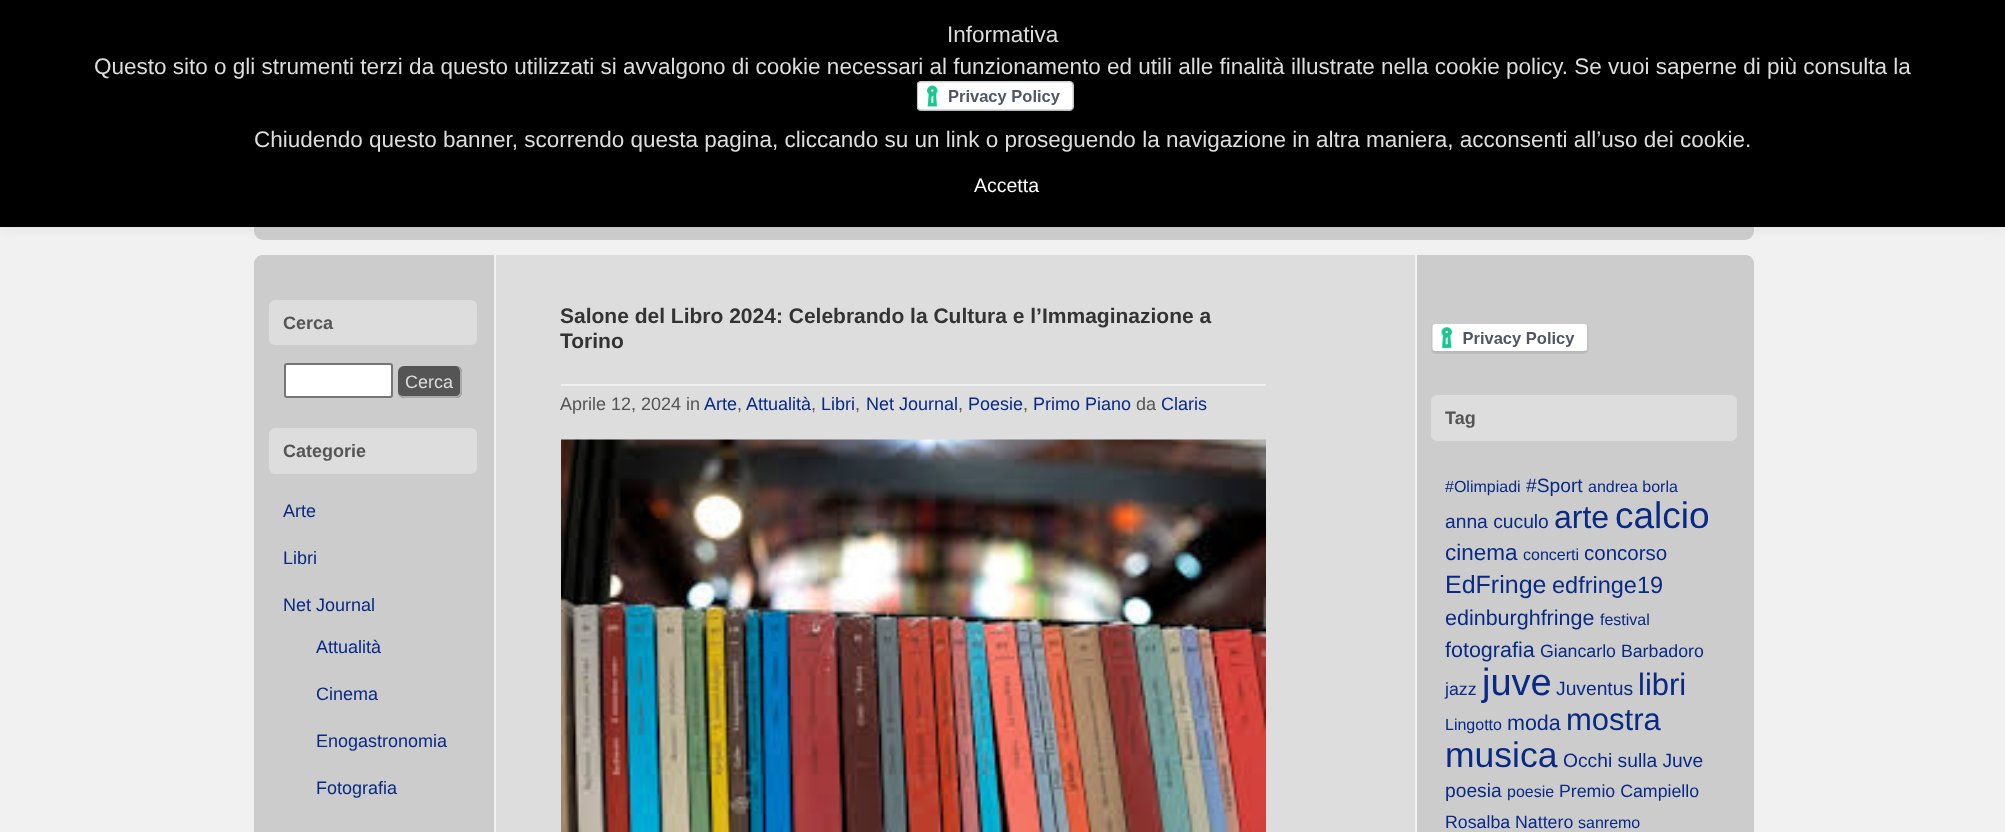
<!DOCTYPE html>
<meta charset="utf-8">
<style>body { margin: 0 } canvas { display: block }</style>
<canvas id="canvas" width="2005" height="832"></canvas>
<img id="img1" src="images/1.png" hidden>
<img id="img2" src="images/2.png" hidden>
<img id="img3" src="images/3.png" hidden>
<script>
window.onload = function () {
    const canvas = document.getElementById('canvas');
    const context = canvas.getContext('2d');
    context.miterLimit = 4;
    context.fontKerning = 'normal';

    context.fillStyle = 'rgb(241, 241, 241)';
    context.fillRect(0, 0, 2005, 832);
    context.fillStyle = 'rgb(204, 204, 204)';
    context.beginPath();
    context.roundRect(254, 183, 1500, 57, 9);
    context.fill();
    context.fillStyle = 'rgba(172, 171, 171, 0.3)';
    context.filter = 'blur(7.5px)';
    context.beginPath();
    context.rect(0, -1, 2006, 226);
    context.fill();
    context.filter = 'none';
    context.fillStyle = 'rgb(0, 0, 0)';
    context.fillRect(0, 0, 2005, 227);
    context.drawImage(document.getElementById('img1'), 916, 81, 158, 30);
    context.fillStyle = 'rgb(221, 221, 221)';
    context.beginPath();
    context.roundRect(254, 255, 1500, 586, 9);
    context.fill();
    context.fillStyle = 'rgb(204, 204, 204)';
    context.beginPath();
    context.moveTo(263, 255);
    context.lineTo(494, 255);
    context.lineTo(494, 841);
    context.lineTo(254, 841);
    context.lineTo(254, 264);
    context.bezierCurveTo(254, 259, 258, 255, 263, 255);
    context.closePath();
    context.fill();
    context.fillStyle = 'rgb(221, 221, 221)';
    context.beginPath();
    context.roundRect(269, 300, 208, 45, 6);
    context.fill();
    context.fillStyle = 'rgb(255, 255, 255)';
    context.beginPath();
    context.roundRect(285, 364, 107, 33, 2);
    context.fill();
    context.strokeStyle = 'rgb(118, 118, 118)';
    context.lineWidth = 2;
    context.stroke();
    context.fillStyle = 'rgb(85, 85, 85)';
    context.beginPath();
    context.roundRect(398, 366, 64, 32, 6);
    context.fill();
    context.fillStyle = 'rgb(170, 170, 170)';
    context.beginPath();
    context.moveTo(404, 366);
    context.lineTo(456, 366);
    context.bezierCurveTo(459, 366, 462, 369, 462, 372);
    context.lineTo(462, 392);
    context.bezierCurveTo(462, 395, 459, 398, 456, 398);
    context.lineTo(404, 398);
    context.bezierCurveTo(400, 398, 398, 395, 398, 392);
    context.lineTo(398, 372);
    context.bezierCurveTo(398, 369, 400, 366, 404, 366);
    context.closePath();
    context.moveTo(404, 366);
    context.lineTo(456, 366);
    context.bezierCurveTo(458, 366, 460, 369, 460, 372);
    context.lineTo(460, 392);
    context.bezierCurveTo(460, 394, 458, 396, 456, 396);
    context.lineTo(404, 396);
    context.bezierCurveTo(400, 396, 398, 394, 398, 392);
    context.lineTo(398, 372);
    context.bezierCurveTo(398, 369, 400, 366, 404, 366);
    context.closePath();
    context.fill('evenodd');
    context.fillStyle = 'rgb(221, 221, 221)';
    context.beginPath();
    context.roundRect(269, 428, 208, 46, 6);
    context.fill();
    context.fillStyle = 'rgb(241, 241, 241)';
    context.fillRect(494, 255, 2, 577);
    context.fillRect(561, 384, 705, 2);
    context.drawImage(document.getElementById('img2'), 561, 439, 705, 393);
    context.fillStyle = 'rgb(204, 204, 204)';
    context.beginPath();
    context.moveTo(1416, 255);
    context.lineTo(1745, 255);
    context.bezierCurveTo(1750, 255, 1754, 259, 1754, 264);
    context.lineTo(1754, 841);
    context.lineTo(1416, 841);
    context.closePath();
    context.fill();
    context.fillStyle = 'rgb(241, 241, 241)';
    context.fillRect(1415, 255, 2, 577);
    context.drawImage(document.getElementById('img3'), 1431, 324, 158, 30);
    context.fillStyle = 'rgb(221, 221, 221)';
    context.beginPath();
    context.roundRect(1431, 395, 306, 46, 6);
    context.fill();
    context.font = '22.5px Liberation Sans';
    context.fillText('Informativa', 947, 42);
    context.fillText('Questo sito o gli strumenti terzi da questo utilizzati si avvalgono di cookie necessari al funzionamento ed utili alle finalità illustrate nella cookie policy. Se vuoi saperne di più consulta la', 94, 74);
    context.fillText('Chiudendo questo banner, scorrendo questa pagina, cliccando su un link o proseguendo la navigazione in altra maniera, acconsenti all’uso dei cookie.', 254, 147);
    context.font = '19.5px Liberation Sans';
    context.fillStyle = 'rgb(255, 255, 255)';
    context.fillText('Accetta', 974, 192);
    context.font = 'bold 18px Liberation Sans';
    context.fillStyle = 'rgb(85, 85, 85)';
    context.fillText('Cerca', 283, 329);
    context.font = '18px Liberation Sans';
    context.fillStyle = 'rgb(221, 221, 221)';
    context.fillText('Cerca', 405, 388);
    context.font = 'bold 18px Liberation Sans';
    context.fillStyle = 'rgb(85, 85, 85)';
    context.fillText('Categorie', 283, 457);
    context.font = '18px Liberation Sans';
    context.fillStyle = 'rgb(8, 42, 133)';
    context.fillText('Arte', 283, 517);
    context.fillText('Libri', 283, 564);
    context.fillText('Net Journal', 283, 611);
    context.fillText('Attualità', 316, 653);
    context.fillText('Cinema', 316, 700);
    context.fillText('Enogastronomia', 316, 747);
    context.fillText('Fotografia', 316, 794);
    context.font = 'bold 21px Liberation Sans';
    context.fillStyle = 'rgb(51, 51, 51)';
    context.fillText('Salone del Libro 2024: Celebrando la Cultura e l’Immaginazione a', 560, 323);
    context.fillText('Torino', 560, 348);
    context.font = '18px Liberation Sans';
    context.fillStyle = 'rgb(85, 85, 85)';
    context.fillText('Aprile 12, 2024 in', 560, 410);
    context.fillStyle = 'rgb(8, 42, 133)';
    context.fillText('Arte', 704, 410);
    context.fillStyle = 'rgb(85, 85, 85)';
    context.fillText(',', 737, 410);
    context.fillStyle = 'rgb(8, 42, 133)';
    context.fillText('Attualità', 746, 410);
    context.fillStyle = 'rgb(85, 85, 85)';
    context.fillText(',', 811, 410);
    context.fillStyle = 'rgb(8, 42, 133)';
    context.fillText('Libri', 821, 410);
    context.fillStyle = 'rgb(85, 85, 85)';
    context.fillText(',', 855, 410);
    context.fillStyle = 'rgb(8, 42, 133)';
    context.fillText('Net Journal', 866, 410);
    context.fillStyle = 'rgb(85, 85, 85)';
    context.fillText(',', 958, 410);
    context.fillStyle = 'rgb(8, 42, 133)';
    context.fillText('Poesie', 968, 410);
    context.fillStyle = 'rgb(85, 85, 85)';
    context.fillText(',', 1023, 410);
    context.fillStyle = 'rgb(8, 42, 133)';
    context.fillText('Primo Piano', 1033, 410);
    context.fillStyle = 'rgb(85, 85, 85)';
    context.fillText('da', 1136, 410);
    context.fillStyle = 'rgb(8, 42, 133)';
    context.fillText('Claris', 1161, 410);
    context.font = 'bold 18px Liberation Sans';
    context.fillStyle = 'rgb(85, 85, 85)';
    context.fillText('Tag', 1445, 424);
    context.font = '16px Liberation Sans';
    context.fillStyle = 'rgb(8, 42, 133)';
    context.fillText('#Olimpiadi', 1445, 492);
    context.font = '19.25px Liberation Sans';
    context.fillText('#Sport', 1526, 492);
    context.font = '16px Liberation Sans';
    context.fillText('andrea borla', 1588, 492);
    context.font = '19.25px Liberation Sans';
    context.fillText('anna cuculo', 1445, 528);
    context.font = '32px Liberation Sans';
    context.fillText('arte', 1554, 528);
    context.font = '37px Liberation Sans';
    context.fillText('calcio', 1615, 528);
    context.font = '22.5px Liberation Sans';
    context.fillText('cinema', 1445, 560);
    context.font = '16px Liberation Sans';
    context.fillText('concerti', 1523, 560);
    context.font = '20.5px Liberation Sans';
    context.fillText('concorso', 1584, 560);
    context.font = '25px Liberation Sans';
    context.fillText('EdFringe', 1445, 593);
    context.font = '23.5px Liberation Sans';
    context.fillText('edfringe19', 1552, 593);
    context.font = '21.5px Liberation Sans';
    context.fillText('edinburghfringe', 1445, 625);
    context.font = '16px Liberation Sans';
    context.fillText('festival', 1600, 625);
    context.font = '21.5px Liberation Sans';
    context.fillText('fotografia', 1445, 657);
    context.font = '17.75px Liberation Sans';
    context.fillText('Giancarlo Barbadoro', 1540, 657);
    context.fillText('jazz', 1445, 695);
    context.font = '38px Liberation Sans';
    context.fillText('juve', 1482, 695);
    context.font = '19.25px Liberation Sans';
    context.fillText('Juventus', 1556, 695);
    context.font = '31px Liberation Sans';
    context.fillText('libri', 1638, 695);
    context.font = '16px Liberation Sans';
    context.fillText('Lingotto', 1445, 730);
    context.font = '21.5px Liberation Sans';
    context.fillText('moda', 1507, 730);
    context.font = '31px Liberation Sans';
    context.fillText('mostra', 1566, 730);
    context.font = '35.5px Liberation Sans';
    context.fillText('musica', 1445, 767);
    context.font = '19.25px Liberation Sans';
    context.fillText('Occhi sulla Juve', 1563, 767);
    context.fillText('poesia', 1445, 797);
    context.font = '16px Liberation Sans';
    context.fillText('poesie', 1507, 797);
    context.font = '17.75px Liberation Sans';
    context.fillText('Premio Campiello', 1559, 797);
    context.fillText('Rosalba Nattero', 1445, 828);
    context.font = '16px Liberation Sans';
    context.fillText('sanremo', 1578, 828);
};
</script>
